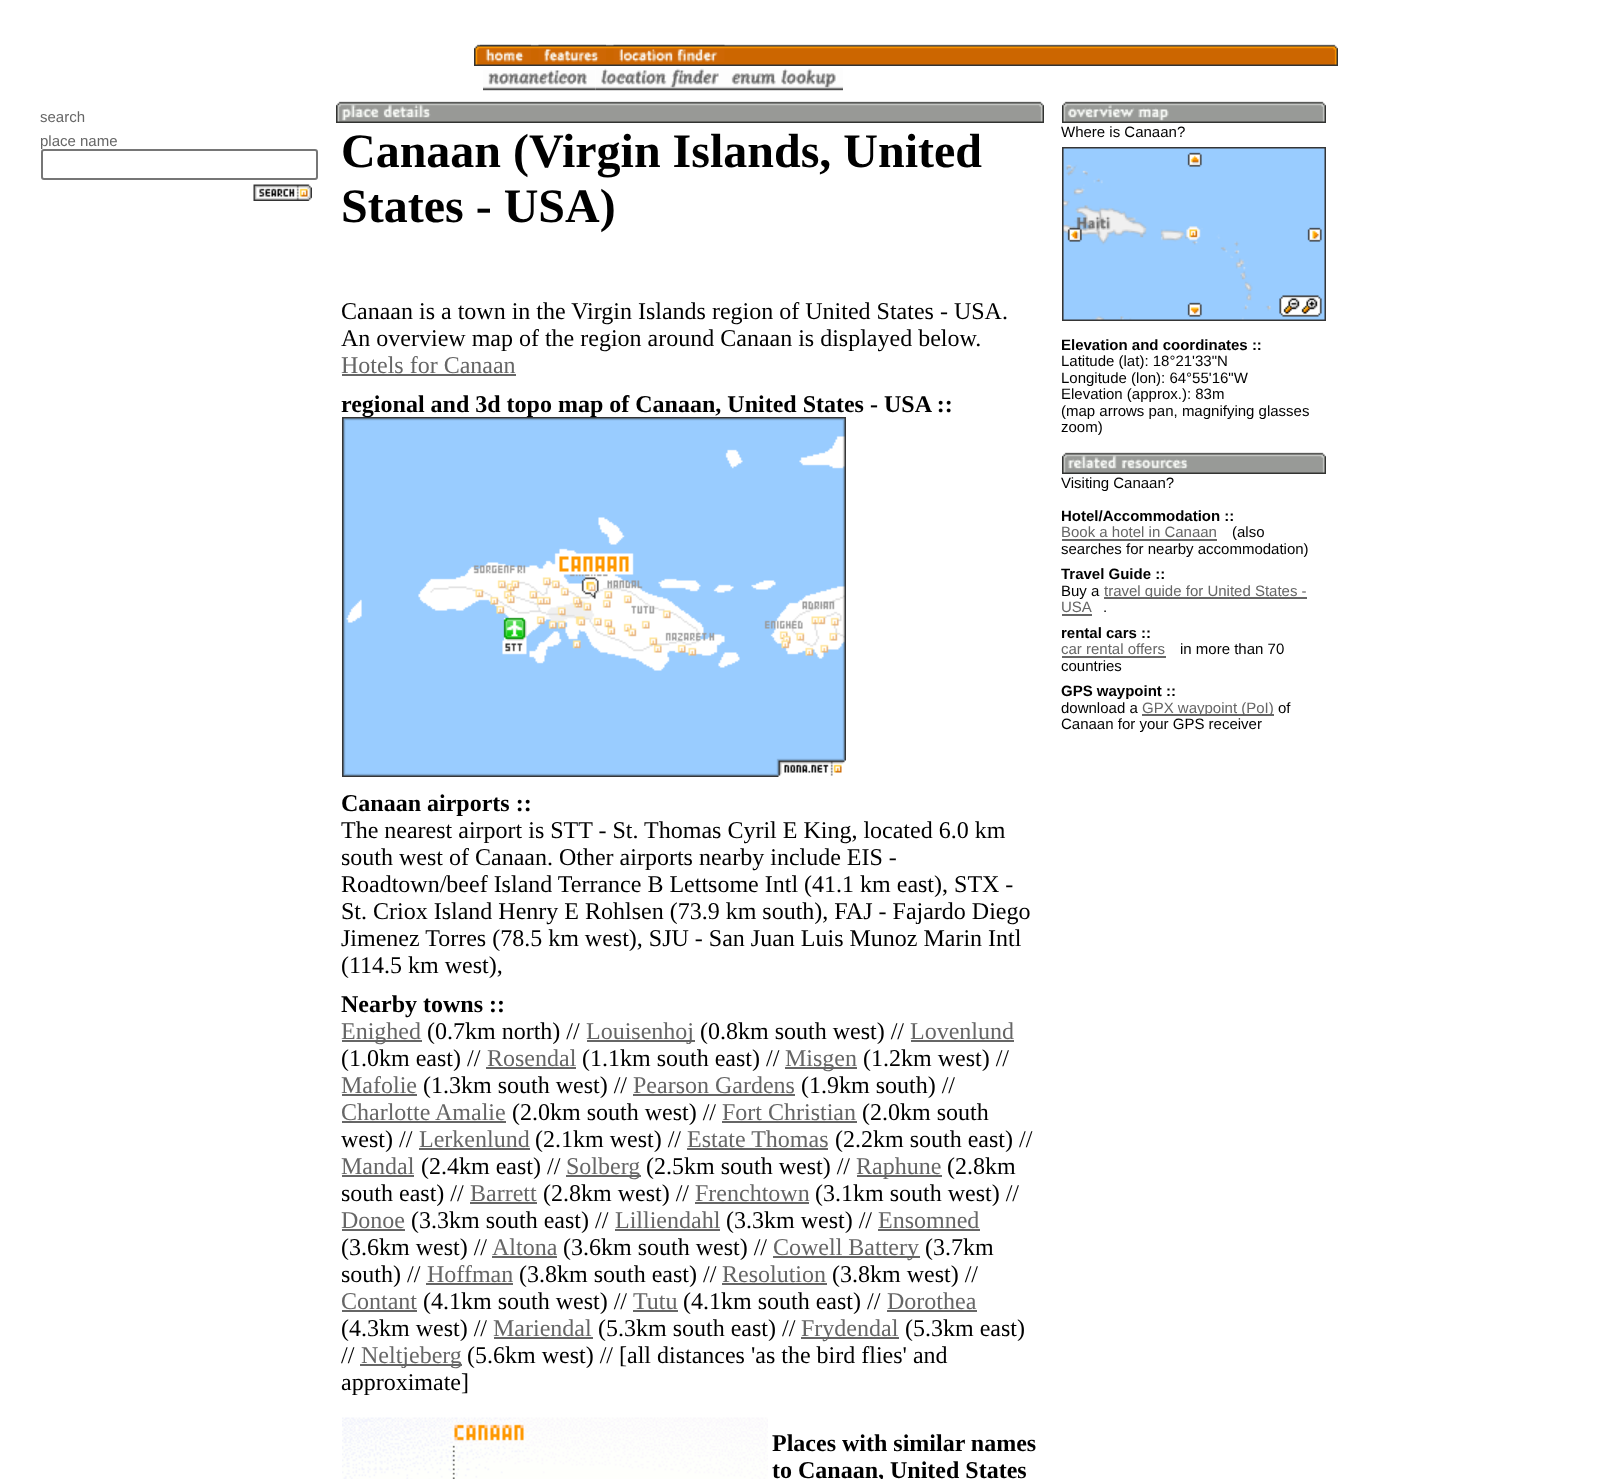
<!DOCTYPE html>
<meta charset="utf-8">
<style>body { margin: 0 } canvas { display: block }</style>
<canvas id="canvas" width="1619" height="1479"></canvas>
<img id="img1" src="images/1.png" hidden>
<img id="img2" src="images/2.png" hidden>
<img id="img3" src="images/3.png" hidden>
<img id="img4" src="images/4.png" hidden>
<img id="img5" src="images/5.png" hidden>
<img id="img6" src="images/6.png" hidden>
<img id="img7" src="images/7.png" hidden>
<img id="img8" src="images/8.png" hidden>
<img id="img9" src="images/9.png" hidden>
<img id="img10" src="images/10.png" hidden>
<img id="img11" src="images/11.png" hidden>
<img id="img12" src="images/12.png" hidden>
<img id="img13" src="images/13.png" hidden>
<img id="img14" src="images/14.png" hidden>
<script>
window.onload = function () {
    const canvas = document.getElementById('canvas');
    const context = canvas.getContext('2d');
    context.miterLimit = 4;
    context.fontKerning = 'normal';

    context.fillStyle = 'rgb(255, 255, 255)';
    context.fillRect(0, 0, 1619, 1479);
    context.drawImage(document.getElementById('img1'), 474, 44, 864, 22);
    context.drawImage(document.getElementById('img2'), 480, 44, 51, 18);
    context.drawImage(document.getElementById('img3'), 538, 44, 68, 18);
    context.drawImage(document.getElementById('img4'), 613, 44, 112, 18);
    context.drawImage(document.getElementById('img5'), 483, 70, 113, 21);
    context.drawImage(document.getElementById('img6'), 595, 68, 131, 23);
    context.drawImage(document.getElementById('img7'), 726, 68, 117, 23);
    context.drawImage(document.getElementById('img8'), 253, 184, 59, 17);
    context.drawImage(document.getElementById('img9'), 336, 101, 708, 22);
    context.fillStyle = 'rgb(102, 102, 102)';
    context.fillRect(342, 374, 174, 2);
    context.drawImage(document.getElementById('img10'), 342, 417, 504, 360);
    context.fillRect(342, 1040, 80, 2);
    context.fillRect(587, 1040, 108, 2);
    context.fillRect(911, 1040, 103, 2);
    context.fillRect(486, 1067, 90, 2);
    context.fillRect(785, 1067, 72, 2);
    context.fillRect(342, 1094, 75, 2);
    context.fillRect(633, 1094, 162, 2);
    context.fillRect(342, 1121, 164, 2);
    context.fillRect(722, 1121, 135, 2);
    context.fillRect(419, 1148, 111, 2);
    context.fillRect(687, 1148, 141, 2);
    context.fillRect(342, 1175, 72, 2);
    context.fillRect(566, 1175, 75, 2);
    context.fillRect(857, 1175, 85, 2);
    context.fillRect(470, 1202, 67, 2);
    context.fillRect(695, 1202, 114, 2);
    context.fillRect(342, 1229, 63, 2);
    context.fillRect(615, 1229, 105, 2);
    context.fillRect(878, 1229, 102, 2);
    context.fillRect(492, 1256, 65, 2);
    context.fillRect(773, 1256, 147, 2);
    context.fillRect(426, 1283, 87, 2);
    context.fillRect(722, 1283, 105, 2);
    context.fillRect(342, 1310, 75, 2);
    context.fillRect(633, 1310, 45, 2);
    context.fillRect(887, 1310, 90, 2);
    context.fillRect(494, 1337, 99, 2);
    context.fillRect(801, 1337, 98, 2);
    context.fillRect(360, 1364, 102, 2);
    context.drawImage(document.getElementById('img11'), 342, 1417, 426, 62);
    context.drawImage(document.getElementById('img12'), 1062, 101, 264, 22);
    context.drawImage(document.getElementById('img13'), 1062, 147, 264, 174);
    context.drawImage(document.getElementById('img14'), 1062, 452, 264, 22);
    context.fillRect(1062, 539, 155, 2);
    context.fillRect(1104, 597, 203, 2);
    context.fillRect(1062, 614, 30, 2);
    context.fillRect(1062, 656, 104, 2);
    context.fillRect(1142, 714, 132, 2);
    context.font = '15px Liberation Sans';
    context.fillText('search', 40, 122);
    context.fillText('place name', 40, 146);
    context.beginPath();
    context.roundRect(42, 150, 275, 29, 2);
    context.strokeStyle = 'rgb(118, 118, 118)';
    context.lineWidth = 2;
    context.stroke();
    context.font = 'bold 48px Liberation Serif';
    context.fillStyle = 'rgb(0, 0, 0)';
    context.fillText('Canaan (Virgin Islands, United', 341, 167);
    context.fillText('States - USA)', 341, 222);
    context.font = '24px Liberation Serif';
    context.fillText('Canaan is a town in the Virgin Islands region of United States - USA.', 341, 319);
    context.fillText('An overview map of the region around Canaan is displayed below.', 341, 346);
    context.fillStyle = 'rgb(102, 102, 102)';
    context.fillText('Hotels for Canaan', 341, 373);
    context.font = 'bold 24px Liberation Serif';
    context.fillStyle = 'rgb(0, 0, 0)';
    context.fillText('regional and 3d topo map of Canaan, United States - USA ::', 341, 412);
    context.fillText('Canaan airports ::', 341, 811);
    context.font = '24px Liberation Serif';
    context.fillText('The nearest airport is STT - St. Thomas Cyril E King, located 6.0 km', 341, 838);
    context.fillText('south west of Canaan. Other airports nearby include EIS -', 341, 865);
    context.fillText('Roadtown/beef Island Terrance B Lettsome Intl (41.1 km east), STX -', 341, 892);
    context.fillText('St. Criox Island Henry E Rohlsen (73.9 km south), FAJ - Fajardo Diego', 341, 919);
    context.fillText('Jimenez Torres (78.5 km west), SJU - San Juan Luis Munoz Marin Intl', 341, 946);
    context.fillText('(114.5 km west),', 341, 973);
    context.font = 'bold 24px Liberation Serif';
    context.fillText('Nearby towns ::', 341, 1012);
    context.font = '24px Liberation Serif';
    context.fillStyle = 'rgb(102, 102, 102)';
    context.fillText('Enighed', 341, 1039);
    context.fillStyle = 'rgb(0, 0, 0)';
    context.fillText('(0.7km north) //', 427, 1039);
    context.fillStyle = 'rgb(102, 102, 102)';
    context.fillText('Louisenhoj', 586, 1039);
    context.fillStyle = 'rgb(0, 0, 0)';
    context.fillText('(0.8km south west) //', 700, 1039);
    context.fillStyle = 'rgb(102, 102, 102)';
    context.fillText('Lovenlund', 910, 1039);
    context.fillStyle = 'rgb(0, 0, 0)';
    context.fillText('(1.0km east) //', 341, 1066);
    context.fillStyle = 'rgb(102, 102, 102)';
    context.fillText('Rosendal', 487, 1066);
    context.fillStyle = 'rgb(0, 0, 0)';
    context.fillText('(1.1km south east) //', 582, 1066);
    context.fillStyle = 'rgb(102, 102, 102)';
    context.fillText('Misgen', 785, 1066);
    context.fillStyle = 'rgb(0, 0, 0)';
    context.fillText('(1.2km west) //', 863, 1066);
    context.fillStyle = 'rgb(102, 102, 102)';
    context.fillText('Mafolie', 341, 1093);
    context.fillStyle = 'rgb(0, 0, 0)';
    context.fillText('(1.3km south west) //', 423, 1093);
    context.fillStyle = 'rgb(102, 102, 102)';
    context.fillText('Pearson Gardens', 633, 1093);
    context.fillStyle = 'rgb(0, 0, 0)';
    context.fillText('(1.9km south) //', 801, 1093);
    context.fillStyle = 'rgb(102, 102, 102)';
    context.fillText('Charlotte Amalie', 341, 1120);
    context.fillStyle = 'rgb(0, 0, 0)';
    context.fillText('(2.0km south west) //', 512, 1120);
    context.fillStyle = 'rgb(102, 102, 102)';
    context.fillText('Fort Christian', 722, 1120);
    context.fillStyle = 'rgb(0, 0, 0)';
    context.fillText('(2.0km south', 862, 1120);
    context.fillText('west) //', 341, 1147);
    context.fillStyle = 'rgb(102, 102, 102)';
    context.fillText('Lerkenlund', 419, 1147);
    context.fillStyle = 'rgb(0, 0, 0)';
    context.fillText('(2.1km west) //', 535, 1147);
    context.fillStyle = 'rgb(102, 102, 102)';
    context.fillText('Estate Thomas', 687, 1147);
    context.fillStyle = 'rgb(0, 0, 0)';
    context.fillText('(2.2km south east) //', 835, 1147);
    context.fillStyle = 'rgb(102, 102, 102)';
    context.fillText('Mandal', 341, 1174);
    context.fillStyle = 'rgb(0, 0, 0)';
    context.fillText('(2.4km east) //', 421, 1174);
    context.fillStyle = 'rgb(102, 102, 102)';
    context.fillText('Solberg', 566, 1174);
    context.fillStyle = 'rgb(0, 0, 0)';
    context.fillText('(2.5km south west) //', 646, 1174);
    context.fillStyle = 'rgb(102, 102, 102)';
    context.fillText('Raphune', 856, 1174);
    context.fillStyle = 'rgb(0, 0, 0)';
    context.fillText('(2.8km', 947, 1174);
    context.fillText('south east) //', 341, 1201);
    context.fillStyle = 'rgb(102, 102, 102)';
    context.fillText('Barrett', 470, 1201);
    context.fillStyle = 'rgb(0, 0, 0)';
    context.fillText('(2.8km west) //', 543, 1201);
    context.fillStyle = 'rgb(102, 102, 102)';
    context.fillText('Frenchtown', 695, 1201);
    context.fillStyle = 'rgb(0, 0, 0)';
    context.fillText('(3.1km south west) //', 815, 1201);
    context.fillStyle = 'rgb(102, 102, 102)';
    context.fillText('Donoe', 341, 1228);
    context.fillStyle = 'rgb(0, 0, 0)';
    context.fillText('(3.3km south east) //', 411, 1228);
    context.fillStyle = 'rgb(102, 102, 102)';
    context.fillText('Lilliendahl', 615, 1228);
    context.fillStyle = 'rgb(0, 0, 0)';
    context.fillText('(3.3km west) //', 726, 1228);
    context.fillStyle = 'rgb(102, 102, 102)';
    context.fillText('Ensomned', 878, 1228);
    context.fillStyle = 'rgb(0, 0, 0)';
    context.fillText('(3.6km west) //', 341, 1255);
    context.fillStyle = 'rgb(102, 102, 102)';
    context.fillText('Altona', 492, 1255);
    context.fillStyle = 'rgb(0, 0, 0)';
    context.fillText('(3.6km south west) //', 563, 1255);
    context.fillStyle = 'rgb(102, 102, 102)';
    context.fillText('Cowell Battery', 773, 1255);
    context.fillStyle = 'rgb(0, 0, 0)';
    context.fillText('(3.7km', 925, 1255);
    context.fillText('south) //', 341, 1282);
    context.fillStyle = 'rgb(102, 102, 102)';
    context.fillText('Hoffman', 427, 1282);
    context.fillStyle = 'rgb(0, 0, 0)';
    context.fillText('(3.8km south east) //', 519, 1282);
    context.fillStyle = 'rgb(102, 102, 102)';
    context.fillText('Resolution', 722, 1282);
    context.fillStyle = 'rgb(0, 0, 0)';
    context.fillText('(3.8km west) //', 832, 1282);
    context.fillStyle = 'rgb(102, 102, 102)';
    context.fillText('Contant', 341, 1309);
    context.fillStyle = 'rgb(0, 0, 0)';
    context.fillText('(4.1km south west) //', 423, 1309);
    context.fillStyle = 'rgb(102, 102, 102)';
    context.fillText('Tutu', 633, 1309);
    context.fillStyle = 'rgb(0, 0, 0)';
    context.fillText('(4.1km south east) //', 683, 1309);
    context.fillStyle = 'rgb(102, 102, 102)';
    context.fillText('Dorothea', 887, 1309);
    context.fillStyle = 'rgb(0, 0, 0)';
    context.fillText('(4.3km west) //', 341, 1336);
    context.fillStyle = 'rgb(102, 102, 102)';
    context.fillText('Mariendal', 493, 1336);
    context.fillStyle = 'rgb(0, 0, 0)';
    context.fillText('(5.3km south east) //', 598, 1336);
    context.fillStyle = 'rgb(102, 102, 102)';
    context.fillText('Frydendal', 801, 1336);
    context.fillStyle = 'rgb(0, 0, 0)';
    context.fillText('(5.3km east)', 905, 1336);
    context.fillText('//', 341, 1363);
    context.fillStyle = 'rgb(102, 102, 102)';
    context.fillText('Neltjeberg', 361, 1363);
    context.fillStyle = 'rgb(0, 0, 0)';
    context.fillText('(5.6km west) // [all distances \'as the bird flies\' and', 467, 1363);
    context.fillText('approximate]', 341, 1390);
    context.font = 'bold 24px Liberation Serif';
    context.fillText('Places with similar names', 772, 1451);
    context.fillText('to Canaan, United States', 772, 1478);
    context.font = '15px Liberation Sans';
    context.fillText('Where is Canaan?', 1061, 137);
    context.font = 'bold 15px Liberation Sans';
    context.fillText('Elevation and coordinates ::', 1061, 350);
    context.font = '15px Liberation Sans';
    context.fillText('Latitude (lat): 18°21\'33"N', 1061, 366);
    context.fillText('Longitude (lon): 64°55\'16"W', 1061, 383);
    context.fillText('Elevation (approx.): 83m', 1061, 399);
    context.fillText('(map arrows pan, magnifying glasses', 1061, 416);
    context.fillText('zoom)', 1061, 432);
    context.fillText('Visiting Canaan?', 1061, 488);
    context.font = 'bold 15px Liberation Sans';
    context.fillText('Hotel/Accommodation ::', 1061, 521);
    context.font = '15px Liberation Sans';
    context.fillStyle = 'rgb(102, 102, 102)';
    context.fillText('Book a hotel in Canaan', 1061, 537);
    context.fillStyle = 'rgb(0, 0, 0)';
    context.fillText('(also', 1232, 537);
    context.fillText('searches for nearby accommodation)', 1061, 554);
    context.font = 'bold 15px Liberation Sans';
    context.fillText('Travel Guide ::', 1061, 579);
    context.font = '15px Liberation Sans';
    context.fillText('Buy a', 1061, 596);
    context.fillStyle = 'rgb(102, 102, 102)';
    context.fillText('travel guide for United States -', 1104, 596);
    context.fillText('USA', 1061, 612);
    context.fillStyle = 'rgb(0, 0, 0)';
    context.fillText('.', 1103, 612);
    context.font = 'bold 15px Liberation Sans';
    context.fillText('rental cars ::', 1061, 638);
    context.font = '15px Liberation Sans';
    context.fillStyle = 'rgb(102, 102, 102)';
    context.fillText('car rental offers', 1061, 654);
    context.fillStyle = 'rgb(0, 0, 0)';
    context.fillText('in more than 70', 1180, 654);
    context.fillText('countries', 1061, 671);
    context.font = 'bold 15px Liberation Sans';
    context.fillText('GPS waypoint ::', 1061, 696);
    context.font = '15px Liberation Sans';
    context.fillText('download a', 1061, 713);
    context.fillStyle = 'rgb(102, 102, 102)';
    context.fillText('GPX waypoint (PoI)', 1142, 713);
    context.fillStyle = 'rgb(0, 0, 0)';
    context.fillText('of', 1278, 713);
    context.fillText('Canaan for your GPS receiver', 1061, 729);
};
</script>
